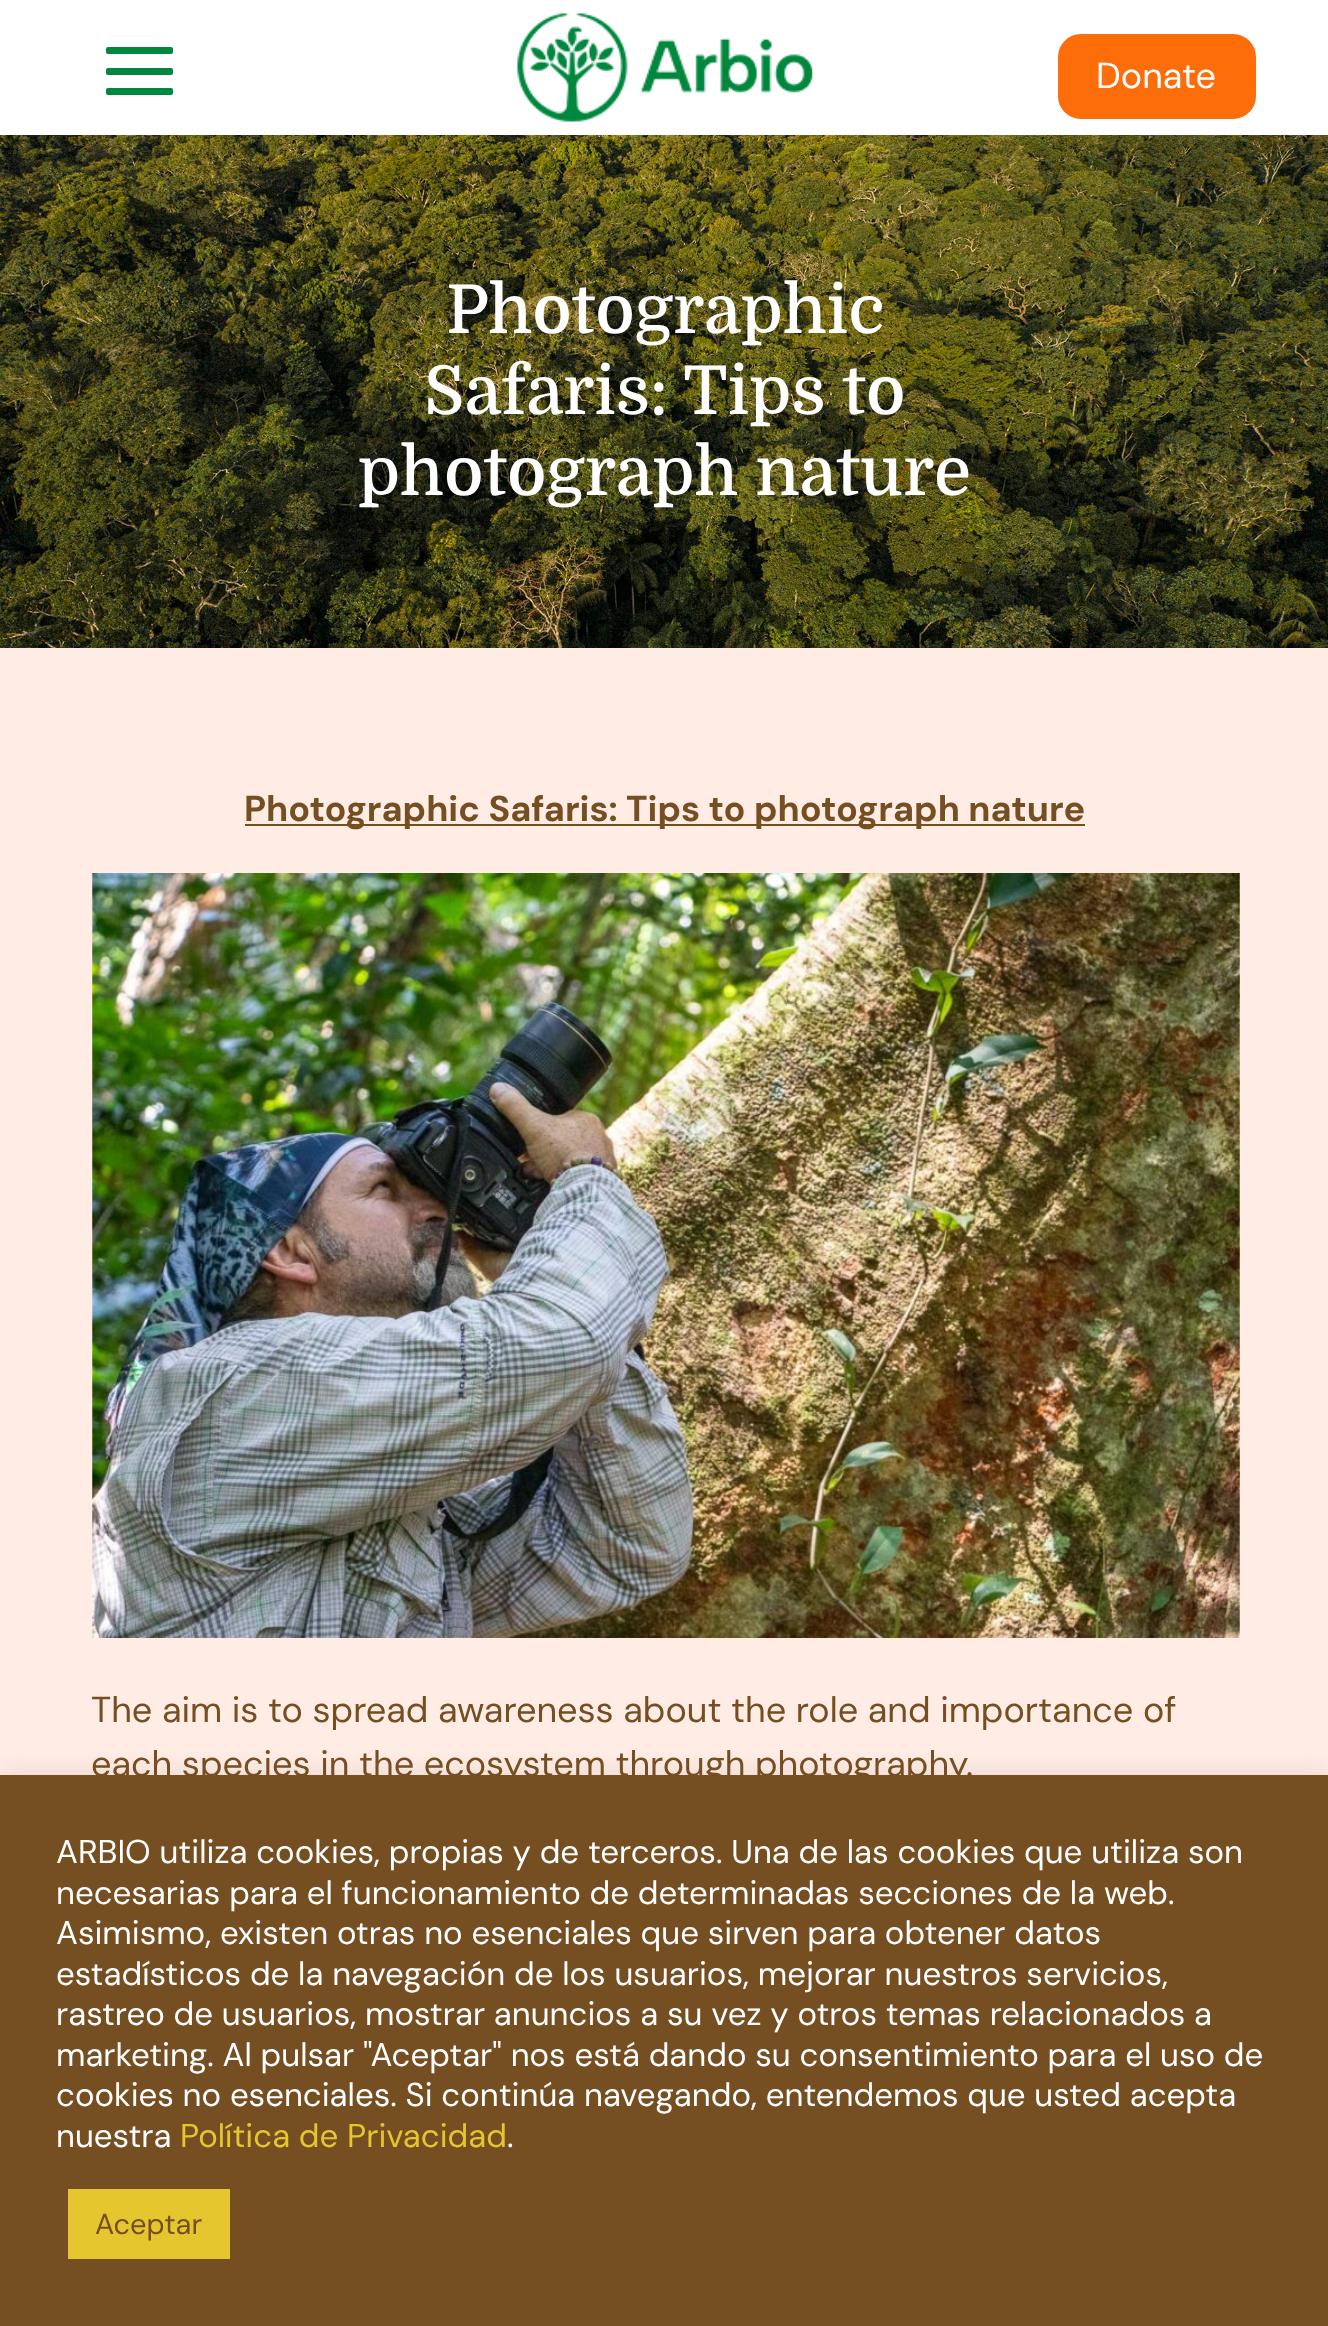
<!DOCTYPE html>
<meta charset="utf-8">
<style>body { margin: 0 } canvas { display: block }</style>
<canvas id="canvas" width="1328" height="2326"></canvas>
<img id="img1" src="images/1.png" hidden>
<img id="img2" src="images/2.png" hidden>
<img id="img3" src="images/3.png" hidden>
<script>
window.onload = function () {
    const canvas = document.getElementById('canvas');
    const context = canvas.getContext('2d');
    context.miterLimit = 4;
    context.fontKerning = 'normal';

    context.fillStyle = 'rgb(255, 236, 228)';
    context.fillRect(0, 0, 1328, 2326);
    context.fillStyle = 'rgb(255, 255, 255)';
    context.fillRect(0, 0, 1328, 135);
    context.fillStyle = 'rgb(1, 135, 62)';
    context.beginPath();
    context.roundRect(106, 47, 67, 7, 2);
    context.fill();
    context.beginPath();
    context.roundRect(106, 68, 67, 7, 2);
    context.fill();
    context.beginPath();
    context.roundRect(106, 88, 67, 7, 2);
    context.fill();
    context.drawImage(document.getElementById('img1'), 517, 13, 296, 109);
    context.fillStyle = 'rgb(253, 110, 11)';
    context.beginPath();
    context.roundRect(1060.5, 36.5, 193, 80, 20.5);
    context.fill();
    context.strokeStyle = 'rgb(253, 110, 11)';
    context.lineWidth = 5;
    context.stroke();
    context.drawImage(document.getElementById('img2'), 0, 135, 1328, 513);
    context.fillStyle = 'rgb(117, 78, 34)';
    context.fillRect(245, 824, 840, 2);
    context.drawImage(document.getElementById('img3'), 92, 873, 1148, 765);
    context.fillStyle = 'rgba(172, 171, 171, 0.3)';
    context.filter = 'blur(11px)';
    context.beginPath();
    context.rect(0, 1773, 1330, 551);
    context.fill();
    context.filter = 'none';
    context.fillStyle = 'rgb(117, 78, 34)';
    context.fillRect(0, 1775, 1328, 551);
    context.fillStyle = 'rgb(229, 198, 46)';
    context.fillRect(68, 2189, 162, 70);
    context.font = '36px DM Sans';
    context.fillStyle = 'rgb(255, 255, 255)';
    context.fillText('Donate', 1096, 88);
    context.font = '500 67.5px Domine';
    context.fillText('Photographic', 446, 333);
    context.fillText('Safaris: Tips to', 424, 414);
    context.fillText('photograph nature', 358, 495);
    context.font = 'bold 36px DM Sans';
    context.fillStyle = 'rgb(117, 78, 34)';
    context.fillText('Photographic Safaris: Tips to photograph nature', 244, 821);
    context.font = '36px DM Sans';
    context.fillText('The aim is to spread awareness about the role and importance of', 91, 1722);
    context.fillText('each species in the ecosystem through photography.', 91, 1776);
    context.font = '33px "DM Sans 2"';
    context.fillStyle = 'rgb(255, 255, 255)';
    context.fillText('ARBIO utiliza cookies, propias y de terceros. Una de las cookies que utiliza son', 56, 1863);
    context.fillText('necesarias para el funcionamiento de determinadas secciones de la web.', 56, 1904);
    context.fillText('Asimismo, existen otras no esenciales que sirven para obtener datos', 56, 1944);
    context.fillText('estadísticos de la navegación de los usuarios, mejorar nuestros servicios,', 56, 1985);
    context.fillText('rastreo de usuarios, mostrar anuncios a su vez y otros temas relacionados a', 56, 2025);
    context.fillText('marketing. Al pulsar "Aceptar" nos está dando su consentimiento para el uso de', 56, 2066);
    context.fillText('cookies no esenciales. Si continúa navegando, entendemos que usted acepta', 56, 2106);
    context.fillText('nuestra', 56, 2147);
    context.fillStyle = 'rgb(229, 198, 46)';
    context.fillText('Política de Privacidad', 180, 2147);
    context.fillStyle = 'rgb(255, 255, 255)';
    context.fillText('.', 507, 2147);
    context.font = '29px "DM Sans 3"';
    context.fillStyle = 'rgb(117, 78, 34)';
    context.fillText('Aceptar', 95, 2234);
};
</script>
